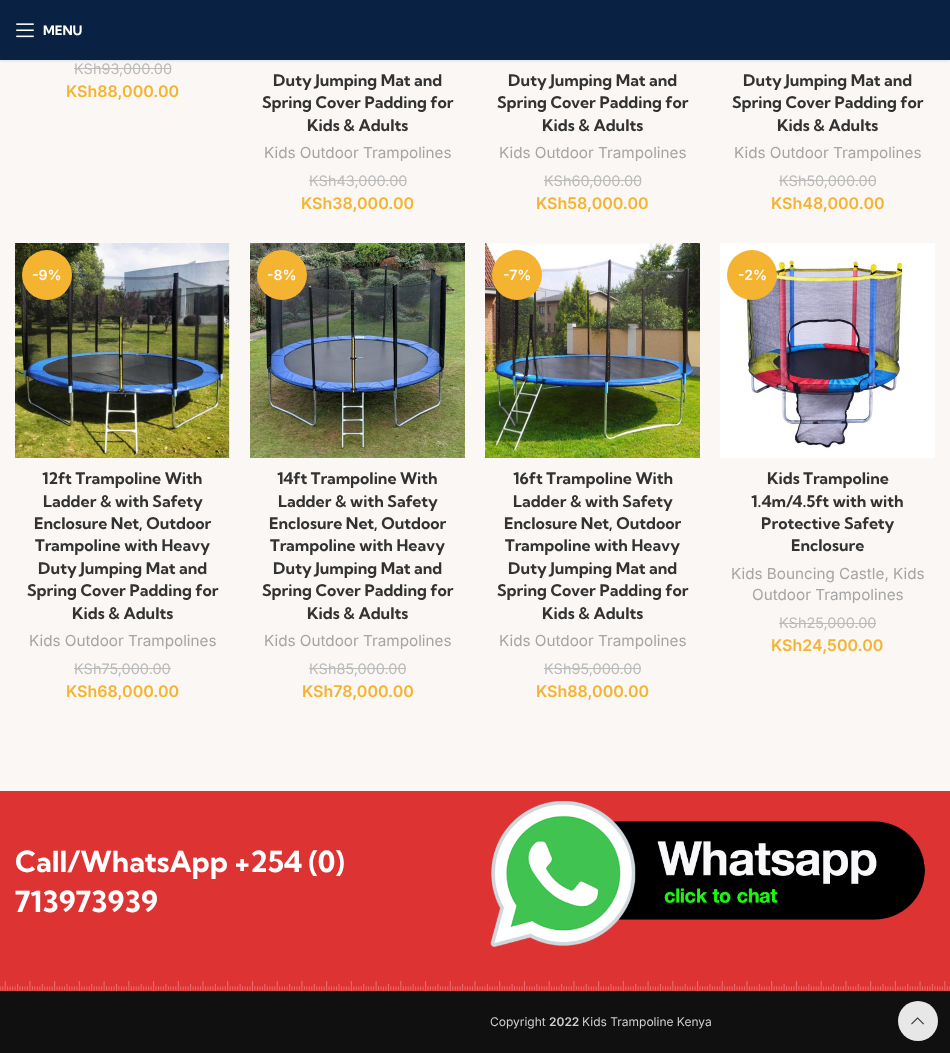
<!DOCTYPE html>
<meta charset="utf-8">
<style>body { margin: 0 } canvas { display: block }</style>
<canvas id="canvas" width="950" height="1053"></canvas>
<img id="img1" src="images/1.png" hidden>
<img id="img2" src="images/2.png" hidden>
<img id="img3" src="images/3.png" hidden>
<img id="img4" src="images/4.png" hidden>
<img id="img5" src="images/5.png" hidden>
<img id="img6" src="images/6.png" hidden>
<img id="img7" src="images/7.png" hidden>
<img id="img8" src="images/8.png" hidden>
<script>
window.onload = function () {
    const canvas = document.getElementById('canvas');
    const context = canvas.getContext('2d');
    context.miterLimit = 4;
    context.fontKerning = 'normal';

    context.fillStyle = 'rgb(250, 247, 244)';
    context.fillRect(0, 0, 950, 1053);
    context.fillStyle = 'rgba(0, 0, 0, 0.1)';
    context.filter = 'blur(1.5px)';
    context.beginPath();
    context.rect(0, 1, 950, 60);
    context.fill();
    context.filter = 'none';
    context.fillStyle = 'rgb(9, 33, 67)';
    context.fillRect(0, 0, 950, 60);
    context.drawImage(document.getElementById('img1'), 16, 23, 18, 15);
    context.fillStyle = 'rgb(187, 187, 187)';
    context.fillRect(74, 68, 97, 1);
    context.fillRect(309, 180, 97, 1);
    context.fillRect(544, 180, 97, 1);
    context.fillRect(779, 180, 97, 1);
    context.drawImage(document.getElementById('img2'), 15, 243, 215, 215);
    context.fillStyle = 'rgb(245, 179, 50)';
    context.beginPath();
    context.arc(47, 275, 25, 0, 2 * Math.PI);
    context.fill();
    context.fillStyle = 'rgb(187, 187, 187)';
    context.fillRect(74, 668, 97, 1);
    context.drawImage(document.getElementById('img3'), 250, 243, 215, 215);
    context.fillStyle = 'rgb(245, 179, 50)';
    context.beginPath();
    context.arc(282, 275, 25, 0, 2 * Math.PI);
    context.fill();
    context.fillStyle = 'rgb(187, 187, 187)';
    context.fillRect(309, 668, 97, 1);
    context.drawImage(document.getElementById('img4'), 485, 243, 215, 215);
    context.fillStyle = 'rgb(245, 179, 50)';
    context.beginPath();
    context.arc(517, 275, 25, 0, 2 * Math.PI);
    context.fill();
    context.fillStyle = 'rgb(187, 187, 187)';
    context.fillRect(544, 668, 97, 1);
    context.drawImage(document.getElementById('img5'), 720, 243, 215, 215);
    context.fillStyle = 'rgb(245, 179, 50)';
    context.beginPath();
    context.arc(752, 275, 25, 0, 2 * Math.PI);
    context.fill();
    context.fillStyle = 'rgb(187, 187, 187)';
    context.fillRect(779, 623, 97, 1);
    context.fillStyle = 'rgb(16, 16, 16)';
    context.fillRect(0, 991, 950, 62);
    context.fillStyle = 'rgb(221, 51, 51)';
    context.fillRect(0, 791, 950, 200);
    context.drawImage(document.getElementById('img6'), 0, 981, 950, 10);
    context.drawImage(document.getElementById('img7'), 490, 801, 435, 146);
    context.fillStyle = 'rgb(231, 231, 231)';
    context.beginPath();
    context.arc(918, 1021, 20, 0, 2 * Math.PI);
    context.fill();
    context.drawImage(document.getElementById('img8'), 911, 1017, 13, 8);
    context.font = 'bold 13px Kumbh Sans';
    context.fillStyle = 'rgb(255, 255, 255)';
    context.fillText('MENU', 43, 35);
    context.font = '14.5px Inter';
    context.fillStyle = 'rgb(187, 187, 187)';
    context.fillText('KSh93,000.00', 74, 74);
    context.font = '600 16px Inter';
    context.fillStyle = 'rgb(245, 179, 50)';
    context.fillText('KSh88,000.00', 66, 97);
    context.font = 'bold 16px Kumbh Sans';
    context.fillStyle = 'rgb(51, 51, 51)';
    context.fillText('Duty Jumping Mat and', 273, 86);
    context.fillText('Spring Cover Padding for', 262, 108);
    context.fillText('Kids & Adults', 307, 131);
    context.font = '15.25px Inter';
    context.fillStyle = 'rgb(165, 165, 165)';
    context.fillText('Kids Outdoor Trampolines', 264, 158);
    context.font = '14.5px Inter';
    context.fillStyle = 'rgb(187, 187, 187)';
    context.fillText('KSh43,000.00', 309, 186);
    context.font = '600 16px Inter';
    context.fillStyle = 'rgb(245, 179, 50)';
    context.fillText('KSh38,000.00', 301, 209);
    context.font = 'bold 16px Kumbh Sans';
    context.fillStyle = 'rgb(51, 51, 51)';
    context.fillText('Duty Jumping Mat and', 508, 86);
    context.fillText('Spring Cover Padding for', 497, 108);
    context.fillText('Kids & Adults', 542, 131);
    context.font = '15.25px Inter';
    context.fillStyle = 'rgb(165, 165, 165)';
    context.fillText('Kids Outdoor Trampolines', 499, 158);
    context.font = '14.5px Inter';
    context.fillStyle = 'rgb(187, 187, 187)';
    context.fillText('KSh60,000.00', 544, 186);
    context.font = '600 16px Inter';
    context.fillStyle = 'rgb(245, 179, 50)';
    context.fillText('KSh58,000.00', 536, 209);
    context.font = 'bold 16px Kumbh Sans';
    context.fillStyle = 'rgb(51, 51, 51)';
    context.fillText('Duty Jumping Mat and', 743, 86);
    context.fillText('Spring Cover Padding for', 732, 108);
    context.fillText('Kids & Adults', 777, 131);
    context.font = '15.25px Inter';
    context.fillStyle = 'rgb(165, 165, 165)';
    context.fillText('Kids Outdoor Trampolines', 734, 158);
    context.font = '14.5px Inter';
    context.fillStyle = 'rgb(187, 187, 187)';
    context.fillText('KSh50,000.00', 779, 186);
    context.font = '600 16px Inter';
    context.fillStyle = 'rgb(245, 179, 50)';
    context.fillText('KSh48,000.00', 771, 209);
    context.font = '600 14px Inter';
    context.fillStyle = 'rgb(255, 255, 255)';
    context.fillText('-9%', 32, 280);
    context.font = 'bold 16px Kumbh Sans';
    context.fillStyle = 'rgb(51, 51, 51)';
    context.fillText('12ft Trampoline With', 42, 484);
    context.fillText('Ladder & with Safety', 43, 507);
    context.fillText('Enclosure Net, Outdoor', 34, 529);
    context.fillText('Trampoline with Heavy', 35, 551);
    context.fillText('Duty Jumping Mat and', 38, 574);
    context.fillText('Spring Cover Padding for', 27, 596);
    context.fillText('Kids & Adults', 72, 619);
    context.font = '15.25px Inter';
    context.fillStyle = 'rgb(165, 165, 165)';
    context.fillText('Kids Outdoor Trampolines', 29, 646);
    context.font = '14.5px Inter';
    context.fillStyle = 'rgb(187, 187, 187)';
    context.fillText('KSh75,000.00', 74, 674);
    context.font = '600 16px Inter';
    context.fillStyle = 'rgb(245, 179, 50)';
    context.fillText('KSh68,000.00', 66, 697);
    context.font = '600 14px Inter';
    context.fillStyle = 'rgb(255, 255, 255)';
    context.fillText('-8%', 267, 280);
    context.font = 'bold 16px Kumbh Sans';
    context.fillStyle = 'rgb(51, 51, 51)';
    context.fillText('14ft Trampoline With', 277, 484);
    context.fillText('Ladder & with Safety', 278, 507);
    context.fillText('Enclosure Net, Outdoor', 269, 529);
    context.fillText('Trampoline with Heavy', 270, 551);
    context.fillText('Duty Jumping Mat and', 273, 574);
    context.fillText('Spring Cover Padding for', 262, 596);
    context.fillText('Kids & Adults', 307, 619);
    context.font = '15.25px Inter';
    context.fillStyle = 'rgb(165, 165, 165)';
    context.fillText('Kids Outdoor Trampolines', 264, 646);
    context.font = '14.5px Inter';
    context.fillStyle = 'rgb(187, 187, 187)';
    context.fillText('KSh85,000.00', 309, 674);
    context.font = '600 16px Inter';
    context.fillStyle = 'rgb(245, 179, 50)';
    context.fillText('KSh78,000.00', 302, 697);
    context.font = '600 14px Inter';
    context.fillStyle = 'rgb(255, 255, 255)';
    context.fillText('-7%', 503, 280);
    context.font = 'bold 16px Kumbh Sans';
    context.fillStyle = 'rgb(51, 51, 51)';
    context.fillText('16ft Trampoline With', 513, 484);
    context.fillText('Ladder & with Safety', 513, 507);
    context.fillText('Enclosure Net, Outdoor', 504, 529);
    context.fillText('Trampoline with Heavy', 505, 551);
    context.fillText('Duty Jumping Mat and', 508, 574);
    context.fillText('Spring Cover Padding for', 497, 596);
    context.fillText('Kids & Adults', 542, 619);
    context.font = '15.25px Inter';
    context.fillStyle = 'rgb(165, 165, 165)';
    context.fillText('Kids Outdoor Trampolines', 499, 646);
    context.font = '14.5px Inter';
    context.fillStyle = 'rgb(187, 187, 187)';
    context.fillText('KSh95,000.00', 544, 674);
    context.font = '600 16px Inter';
    context.fillStyle = 'rgb(245, 179, 50)';
    context.fillText('KSh88,000.00', 536, 697);
    context.font = '600 14px Inter';
    context.fillStyle = 'rgb(255, 255, 255)';
    context.fillText('-2%', 738, 280);
    context.font = 'bold 16px Kumbh Sans';
    context.fillStyle = 'rgb(51, 51, 51)';
    context.fillText('Kids Trampoline', 767, 484);
    context.fillText('1.4m/4.5ft with with', 751, 507);
    context.fillText('Protective Safety', 761, 529);
    context.fillText('Enclosure', 791, 551);
    context.font = '15.25px Inter';
    context.fillStyle = 'rgb(165, 165, 165)';
    context.fillText('Kids Bouncing Castle, Kids', 731, 579);
    context.fillText('Outdoor Trampolines', 752, 600);
    context.font = '14.5px Inter';
    context.fillStyle = 'rgb(187, 187, 187)';
    context.fillText('KSh25,000.00', 779, 628);
    context.font = '600 16px Inter';
    context.fillStyle = 'rgb(245, 179, 50)';
    context.fillText('KSh24,500.00', 771, 651);
    context.font = 'bold 29px Kumbh Sans';
    context.fillStyle = 'rgb(255, 255, 255)';
    context.fillText('Call/WhatsApp +254 (0)', 15, 872);
    context.fillText('713973939', 15, 912);
    context.font = '12px Inter';
    context.fillStyle = 'rgb(207, 207, 207)';
    context.fillText('Copyright', 490, 1026);
    context.font = '600 12px Inter';
    context.fillText('2022', 549, 1026);
    context.font = '12px Inter';
    context.fillText('Kids Trampoline Kenya', 582, 1026);
};
</script>
